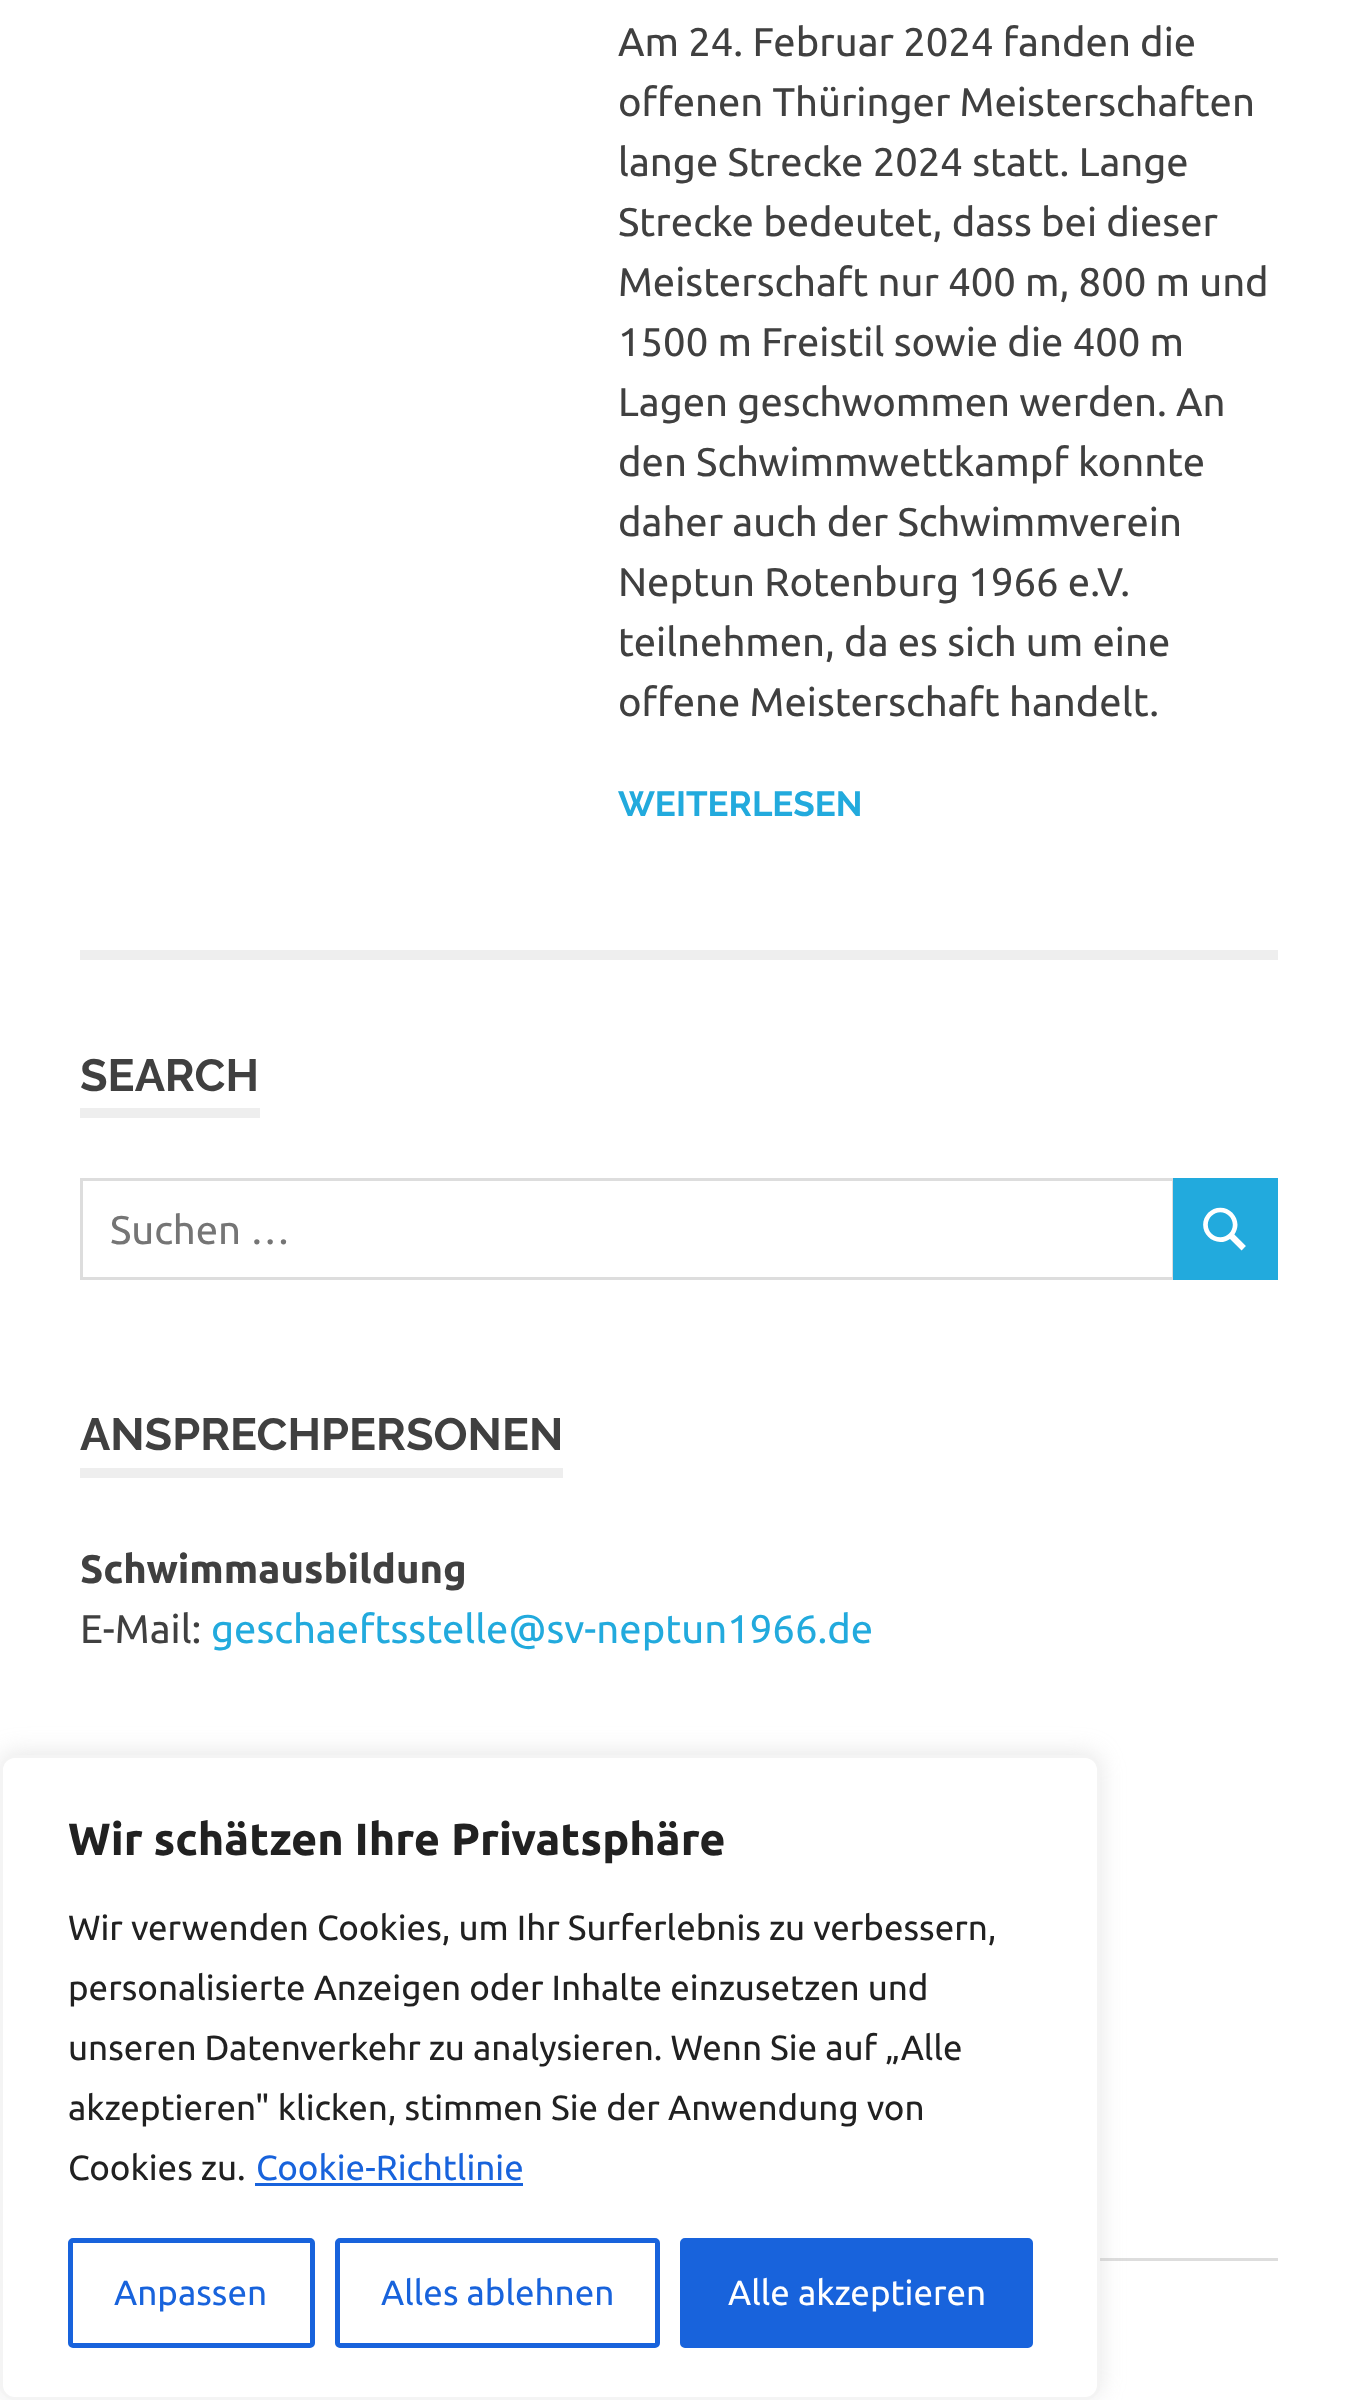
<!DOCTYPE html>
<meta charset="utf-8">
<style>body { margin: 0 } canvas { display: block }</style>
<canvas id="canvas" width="1356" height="2400"></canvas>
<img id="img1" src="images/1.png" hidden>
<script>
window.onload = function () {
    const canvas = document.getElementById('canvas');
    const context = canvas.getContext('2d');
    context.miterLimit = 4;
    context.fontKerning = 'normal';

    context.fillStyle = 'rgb(255, 255, 255)';
    context.fillRect(0, 0, 1356, 2400);
    context.fillStyle = 'rgb(238, 238, 238)';
    context.fillRect(80, 950, 1198, 10);
    context.fillRect(80, 1108, 180, 10);
    context.strokeStyle = 'rgb(221, 221, 221)';
    context.lineWidth = 3;
    context.strokeRect(81.5, 1179.5, 1092, 99);
    context.fillStyle = 'rgb(34, 170, 221)';
    context.fillRect(1173, 1178, 105, 102);
    context.drawImage(document.getElementById('img1'), 1203, 1207, 43, 44);
    context.fillStyle = 'rgb(238, 238, 238)';
    context.fillRect(80, 1468, 483, 10);
    context.fillStyle = 'rgb(221, 221, 221)';
    context.fillRect(1100, 2258, 178, 3);
    context.fillStyle = 'rgba(172, 171, 171, 0.3)';
    context.filter = 'blur(12.5px)';
    context.beginPath();
    context.roundRect(0, 1753, 1100, 645, 15);
    context.fill();
    context.filter = 'none';
    context.fillStyle = 'rgb(255, 255, 255)';
    context.beginPath();
    context.roundRect(1.5, 1756.5, 1097, 642, 13.5);
    context.fill();
    context.strokeStyle = 'rgb(244, 244, 244)';
    context.stroke();
    context.fillStyle = 'rgb(24, 99, 220)';
    context.fillRect(255, 2183, 268, 3);
    context.beginPath();
    context.roundRect(70.5, 2240.5, 242, 105, 2.5);
    context.strokeStyle = 'rgb(24, 99, 220)';
    context.lineWidth = 5;
    context.stroke();
    context.beginPath();
    context.roundRect(337.5, 2240.5, 320, 105, 2.5);
    context.stroke();
    context.beginPath();
    context.roundRect(682.5, 2240.5, 348, 105, 2.5);
    context.fill();
    context.stroke();
    context.font = '40px Ubuntu';
    context.fillStyle = 'rgb(64, 64, 64)';
    context.fillText('Am 24. Februar 2024 fanden die', 618, 56);
    context.fillText('offenen Thüringer Meisterschaften', 618, 116);
    context.fillText('lange Strecke 2024 statt. Lange', 618, 176);
    context.fillText('Strecke bedeutet, dass bei dieser', 618, 236);
    context.fillText('Meisterschaft nur 400 m, 800 m und', 618, 296);
    context.fillText('1500 m Freistil sowie die 400 m', 618, 356);
    context.fillText('Lagen geschwommen werden. An', 618, 416);
    context.fillText('den Schwimmwettkampf konnte', 618, 476);
    context.fillText('daher auch der Schwimmverein', 618, 536);
    context.fillText('Neptun Rotenburg 1966 e.V.', 618, 596);
    context.fillText('teilnehmen, da es sich um eine', 618, 656);
    context.fillText('offene Meisterschaft handelt.', 618, 716);
    context.font = 'bold 35px Raleway';
    context.fillStyle = 'rgb(34, 170, 221)';
    context.fillText('WEITERLESEN', 618, 816);
    context.font = 'bold 45px Raleway';
    context.fillStyle = 'rgb(64, 64, 64)';
    context.fillText('SEARCH', 80, 1091);
    context.font = '40px Ubuntu';
    context.fillStyle = 'rgb(117, 117, 117)';
    context.fillText('Suchen …', 110, 1244);
    context.font = 'bold 45px Raleway';
    context.fillStyle = 'rgb(64, 64, 64)';
    context.fillText('ANSPRECHPERSONEN', 80, 1450);
    context.font = 'bold 40px Ubuntu';
    context.fillText('Schwimmausbildung', 80, 1583);
    context.font = '40px Ubuntu';
    context.fillText('E-Mail:', 80, 1643);
    context.fillStyle = 'rgb(34, 170, 221)';
    context.fillText('geschaeftsstelle@sv-neptun1966.de', 211, 1643);
    context.font = 'bold 45px Ubuntu';
    context.fillStyle = 'rgb(33, 33, 33)';
    context.fillText('Wir schätzen Ihre Privatsphäre', 68, 1855);
    context.font = '35px Ubuntu';
    context.fillText('Wir verwenden Cookies, um Ihr Surferlebnis zu verbessern,', 68, 1940);
    context.fillText('personalisierte Anzeigen oder Inhalte einzusetzen und', 68, 2000);
    context.fillText('unseren Datenverkehr zu analysieren. Wenn Sie auf „Alle', 68, 2060);
    context.fillText('akzeptieren" klicken, stimmen Sie der Anwendung von', 68, 2120);
    context.fillText('Cookies zu.', 68, 2180);
    context.fillStyle = 'rgb(24, 99, 220)';
    context.fillText('Cookie-Richtlinie', 256, 2180);
    context.fillText('Anpassen', 114, 2305);
    context.fillText('Alles ablehnen', 381, 2305);
    context.fillStyle = 'rgb(255, 255, 255)';
    context.fillText('Alle akzeptieren', 728, 2305);
};
</script>
